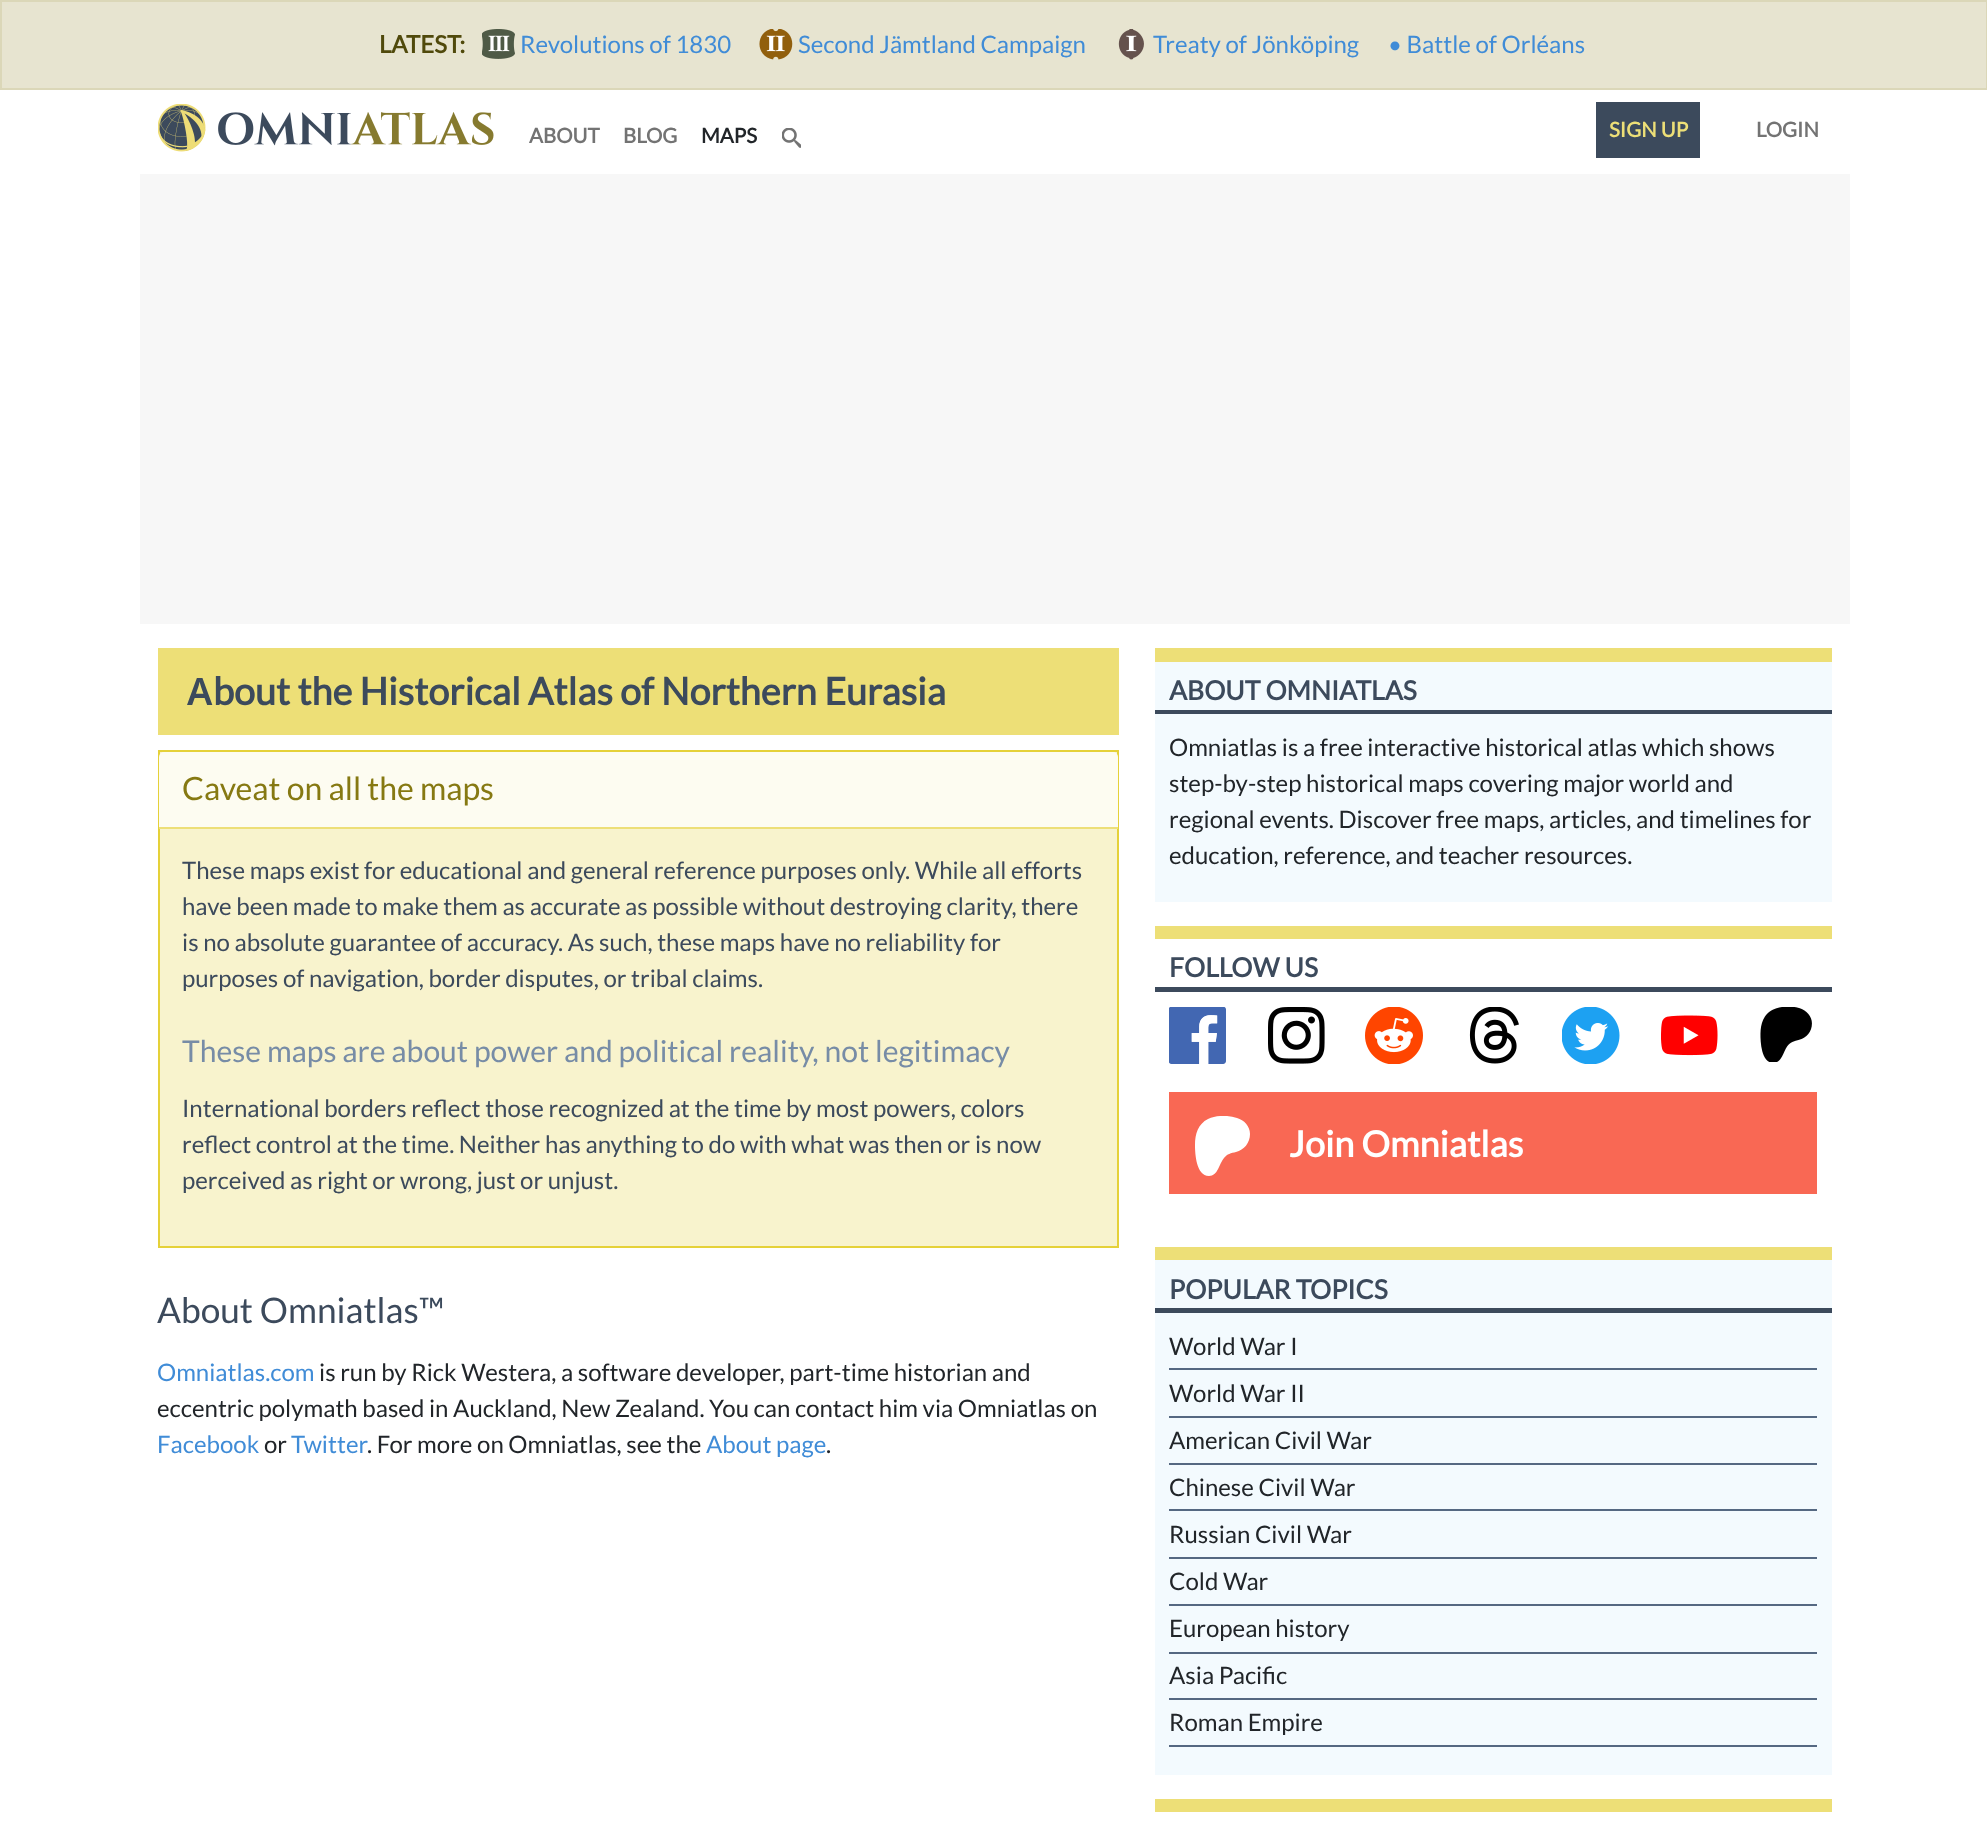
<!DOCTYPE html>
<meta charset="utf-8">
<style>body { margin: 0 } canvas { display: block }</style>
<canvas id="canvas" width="1987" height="1822"></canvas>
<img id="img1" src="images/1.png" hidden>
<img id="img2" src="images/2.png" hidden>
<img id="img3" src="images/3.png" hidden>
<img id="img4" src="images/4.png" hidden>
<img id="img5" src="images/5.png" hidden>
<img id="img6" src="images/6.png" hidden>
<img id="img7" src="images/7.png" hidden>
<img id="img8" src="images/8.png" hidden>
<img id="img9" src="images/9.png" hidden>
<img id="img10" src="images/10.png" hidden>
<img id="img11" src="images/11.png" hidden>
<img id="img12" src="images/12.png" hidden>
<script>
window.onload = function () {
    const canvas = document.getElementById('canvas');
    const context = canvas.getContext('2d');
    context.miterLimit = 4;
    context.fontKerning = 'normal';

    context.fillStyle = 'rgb(255, 255, 255)';
    context.fillRect(0, 0, 1987, 1822);
    context.fillStyle = 'rgb(231, 228, 208)';
    context.beginPath();
    context.rect(1, 1, 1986, 88);
    context.fill();
    context.strokeStyle = 'rgb(219, 215, 184)';
    context.lineWidth = 2;
    context.stroke();
    context.drawImage(document.getElementById('img1'), 482, 29, 33, 30);
    context.drawImage(document.getElementById('img2'), 759, 29, 34, 31);
    context.drawImage(document.getElementById('img3'), 1118, 29, 26, 31);
    context.drawImage(document.getElementById('img4'), 158, 104, 336, 48);
    context.drawImage(document.getElementById('img5'), 782, 128, 19, 20);
    context.fillStyle = 'rgb(60, 74, 92)';
    context.fillRect(1596, 102, 104, 56);
    context.fillStyle = 'rgb(247, 247, 247)';
    context.fillRect(140, 174, 1710, 450);
    context.fillStyle = 'rgb(237, 223, 119)';
    context.fillRect(158, 648, 961, 87);
    context.fillStyle = 'rgb(248, 243, 205)';
    context.beginPath();
    context.rect(159, 751, 959, 496);
    context.fill();
    context.strokeStyle = 'rgb(229, 209, 57)';
    context.stroke();
    context.fillStyle = 'rgb(253, 252, 241)';
    context.beginPath();
    context.roundRect(159, 752, 959, 76, [5, 5, 0, 0]);
    context.fill();
    context.fillStyle = 'rgb(237, 223, 119)';
    context.fillRect(159, 827, 959, 2);
    context.fillStyle = 'rgb(243, 250, 254)';
    context.fillRect(1155, 662, 677, 48);
    context.fillStyle = 'rgb(237, 223, 119)';
    context.fillRect(1155, 648, 677, 14);
    context.fillStyle = 'rgb(60, 74, 92)';
    context.fillRect(1155, 710, 677, 4);
    context.fillStyle = 'rgb(243, 250, 254)';
    context.fillRect(1155, 714, 677, 188);
    context.fillStyle = 'rgb(237, 223, 119)';
    context.fillRect(1155, 926, 677, 13);
    context.fillStyle = 'rgb(60, 74, 92)';
    context.fillRect(1155, 987, 677, 5);
    context.drawImage(document.getElementById('img6'), 1169, 1007, 57, 57);
    context.drawImage(document.getElementById('img7'), 1268, 1007, 57, 57);
    context.drawImage(document.getElementById('img8'), 1365, 1007, 58, 57);
    context.drawImage(document.getElementById('img9'), 1469, 1007, 50, 57);
    context.drawImage(document.getElementById('img10'), 1562, 1007, 58, 57);
    context.drawImage(document.getElementById('img11'), 1661, 1015, 57, 41);
    context.drawImage(document.getElementById('img12'), 1760, 1007, 52, 55);
    context.fillStyle = 'rgb(249, 104, 84)';
    context.fillRect(1169, 1092, 648, 102);
    context.save();
    context.beginPath();
    context.rect(1193, 1116, 60, 60);
    context.clip();
    context.fillStyle = 'rgb(255, 255, 255)';
    context.beginPath();
    context.moveTo(1250, 1134);
    context.bezierCurveTo(1250, 1126, 1244, 1120, 1237, 1118);
    context.bezierCurveTo(1228, 1115, 1217, 1115, 1208, 1119);
    context.bezierCurveTo(1198, 1124, 1195, 1134, 1195, 1145);
    context.bezierCurveTo(1195, 1153, 1196, 1176, 1209, 1176);
    context.bezierCurveTo(1218, 1176, 1219, 1164, 1224, 1158);
    context.bezierCurveTo(1227, 1154, 1231, 1153, 1236, 1152);
    context.bezierCurveTo(1244, 1150, 1250, 1143, 1250, 1134);
    context.closePath();
    context.fill();
    context.restore();
    context.fillStyle = 'rgb(243, 250, 254)';
    context.fillRect(1155, 1260, 677, 48);
    context.fillStyle = 'rgb(237, 223, 119)';
    context.fillRect(1155, 1247, 677, 13);
    context.fillStyle = 'rgb(60, 74, 92)';
    context.fillRect(1155, 1308, 677, 5);
    context.fillStyle = 'rgb(243, 250, 254)';
    context.fillRect(1155, 1313, 677, 462);
    context.fillStyle = 'rgb(85, 104, 130)';
    context.fillRect(1169, 1368, 648, 2);
    context.fillRect(1169, 1416, 648, 2);
    context.fillRect(1169, 1463, 648, 2);
    context.fillRect(1169, 1509, 648, 2);
    context.fillRect(1169, 1557, 648, 2);
    context.fillRect(1169, 1604, 648, 2);
    context.fillRect(1169, 1652, 648, 2);
    context.fillRect(1169, 1698, 648, 2);
    context.fillRect(1169, 1745, 648, 2);
    context.fillStyle = 'rgb(237, 223, 119)';
    context.fillRect(1155, 1799, 677, 13);
    context.font = 'bold 24px Lato';
    context.fillStyle = 'rgb(80, 73, 11)';
    context.fillText('LATEST:', 379, 53);
    context.font = '24px Lato';
    context.fillStyle = 'rgb(64, 140, 215)';
    context.fillText('Revolutions of 1830', 520, 53);
    context.fillText('Second Jämtland Campaign', 798, 53);
    context.fillText('Treaty of Jönköping', 1153, 53);
    context.fillText('• Battle of Orléans', 1388, 53);
    context.font = 'bold 20.5px Lato';
    context.fillStyle = 'rgb(115, 115, 115)';
    context.fillText('ABOUT', 529, 143);
    context.fillText('BLOG', 623, 143);
    context.fillStyle = 'rgb(33, 37, 41)';
    context.fillText('MAPS', 701, 143);
    context.fillStyle = 'rgb(237, 223, 119)';
    context.fillText('SIGN UP', 1609, 137);
    context.fillStyle = 'rgb(115, 115, 115)';
    context.fillText('LOGIN', 1756, 137);
    context.font = '600 37.75px Noto Sans';
    context.fillStyle = 'rgb(60, 74, 92)';
    context.fillText('A', 187, 705);
    context.font = 'bold 37.75px Lato';
    context.fillText('bout the Historical Atlas of Northern Eurasia', 213, 705);
    context.font = '32px Lato';
    context.fillStyle = 'rgb(134, 121, 18)';
    context.fillText('Caveat on all the maps', 182, 800);
    context.font = '24px Lato';
    context.fillStyle = 'rgb(60, 74, 92)';
    context.fillText('These maps exist for educational and general reference purposes only. While all efforts', 182, 879);
    context.fillText('have been made to make them as accurate as possible without destroying clarity, there', 182, 915);
    context.fillText('is no absolute guarantee of accuracy. As such, these maps have no reliability for', 182, 951);
    context.fillText('purposes of navigation, border disputes, or tribal claims.', 182, 987);
    context.font = '30.1px Lato';
    context.fillStyle = 'rgb(119, 140, 166)';
    context.fillText('These maps are about power and political reality, not legitimacy', 182, 1062);
    context.font = '24px Lato';
    context.fillStyle = 'rgb(60, 74, 92)';
    context.fillText('International borders reflect those recognized at the time by most powers, colors', 182, 1117);
    context.fillText('reflect control at the time. Neither has anything to do with what was then or is now', 182, 1153);
    context.fillText('perceived as right or wrong, just or unjust.', 182, 1189);
    context.font = '35.25px Lato';
    context.fillText('About Omniatlas™', 157, 1323);
    context.font = '24px Lato';
    context.fillStyle = 'rgb(64, 140, 215)';
    context.fillText('Omniatlas.com', 157, 1381);
    context.fillStyle = 'rgb(33, 37, 41)';
    context.fillText('is run by Rick Westera, a software developer, part-time historian and', 319, 1381);
    context.fillText('eccentric polymath based in Auckland, New Zealand. You can contact him via Omniatlas on', 157, 1417);
    context.fillStyle = 'rgb(64, 140, 215)';
    context.fillText('Facebook', 157, 1453);
    context.fillStyle = 'rgb(33, 37, 41)';
    context.fillText('or', 264, 1453);
    context.fillStyle = 'rgb(64, 140, 215)';
    context.fillText('Twitter', 291, 1453);
    context.fillStyle = 'rgb(33, 37, 41)';
    context.fillText('. For more on Omniatlas, see the', 367, 1453);
    context.fillStyle = 'rgb(64, 140, 215)';
    context.fillText('About page', 706, 1453);
    context.fillStyle = 'rgb(33, 37, 41)';
    context.fillText('.', 826, 1453);
    context.font = 'bold 26.5px Lato';
    context.fillStyle = 'rgb(60, 74, 92)';
    context.fillText('ABOUT OMNIATLAS', 1169, 700);
    context.font = '24px Lato';
    context.fillStyle = 'rgb(33, 37, 41)';
    context.fillText('Omniatlas is a free interactive historical atlas which shows', 1169, 756);
    context.fillText('step-by-step historical maps covering major world and', 1169, 792);
    context.fillText('regional events. Discover free maps, articles, and timelines for', 1169, 828);
    context.fillText('education, reference, and teacher resources.', 1169, 864);
    context.font = 'bold 26.5px Lato';
    context.fillStyle = 'rgb(60, 74, 92)';
    context.fillText('FOLLOW US', 1169, 977);
    context.font = 'bold 36px Lato';
    context.fillStyle = 'rgb(255, 255, 255)';
    context.fillText('Join Omniatlas', 1289, 1157);
    context.font = 'bold 26.5px Lato';
    context.fillStyle = 'rgb(60, 74, 92)';
    context.fillText('POPULAR TOPICS', 1169, 1299);
    context.font = '24px Lato';
    context.fillStyle = 'rgb(33, 37, 41)';
    context.fillText('World War I', 1169, 1355);
    context.fillText('World War II', 1169, 1402);
    context.fillText('American Civil War', 1169, 1449);
    context.fillText('Chinese Civil War', 1169, 1496);
    context.fillText('Russian Civil War', 1169, 1543);
    context.fillText('Cold War', 1169, 1590);
    context.fillText('European history', 1169, 1637);
    context.fillText('Asia Pacific', 1169, 1684);
    context.fillText('Roman Empire', 1169, 1731);
};
</script>
